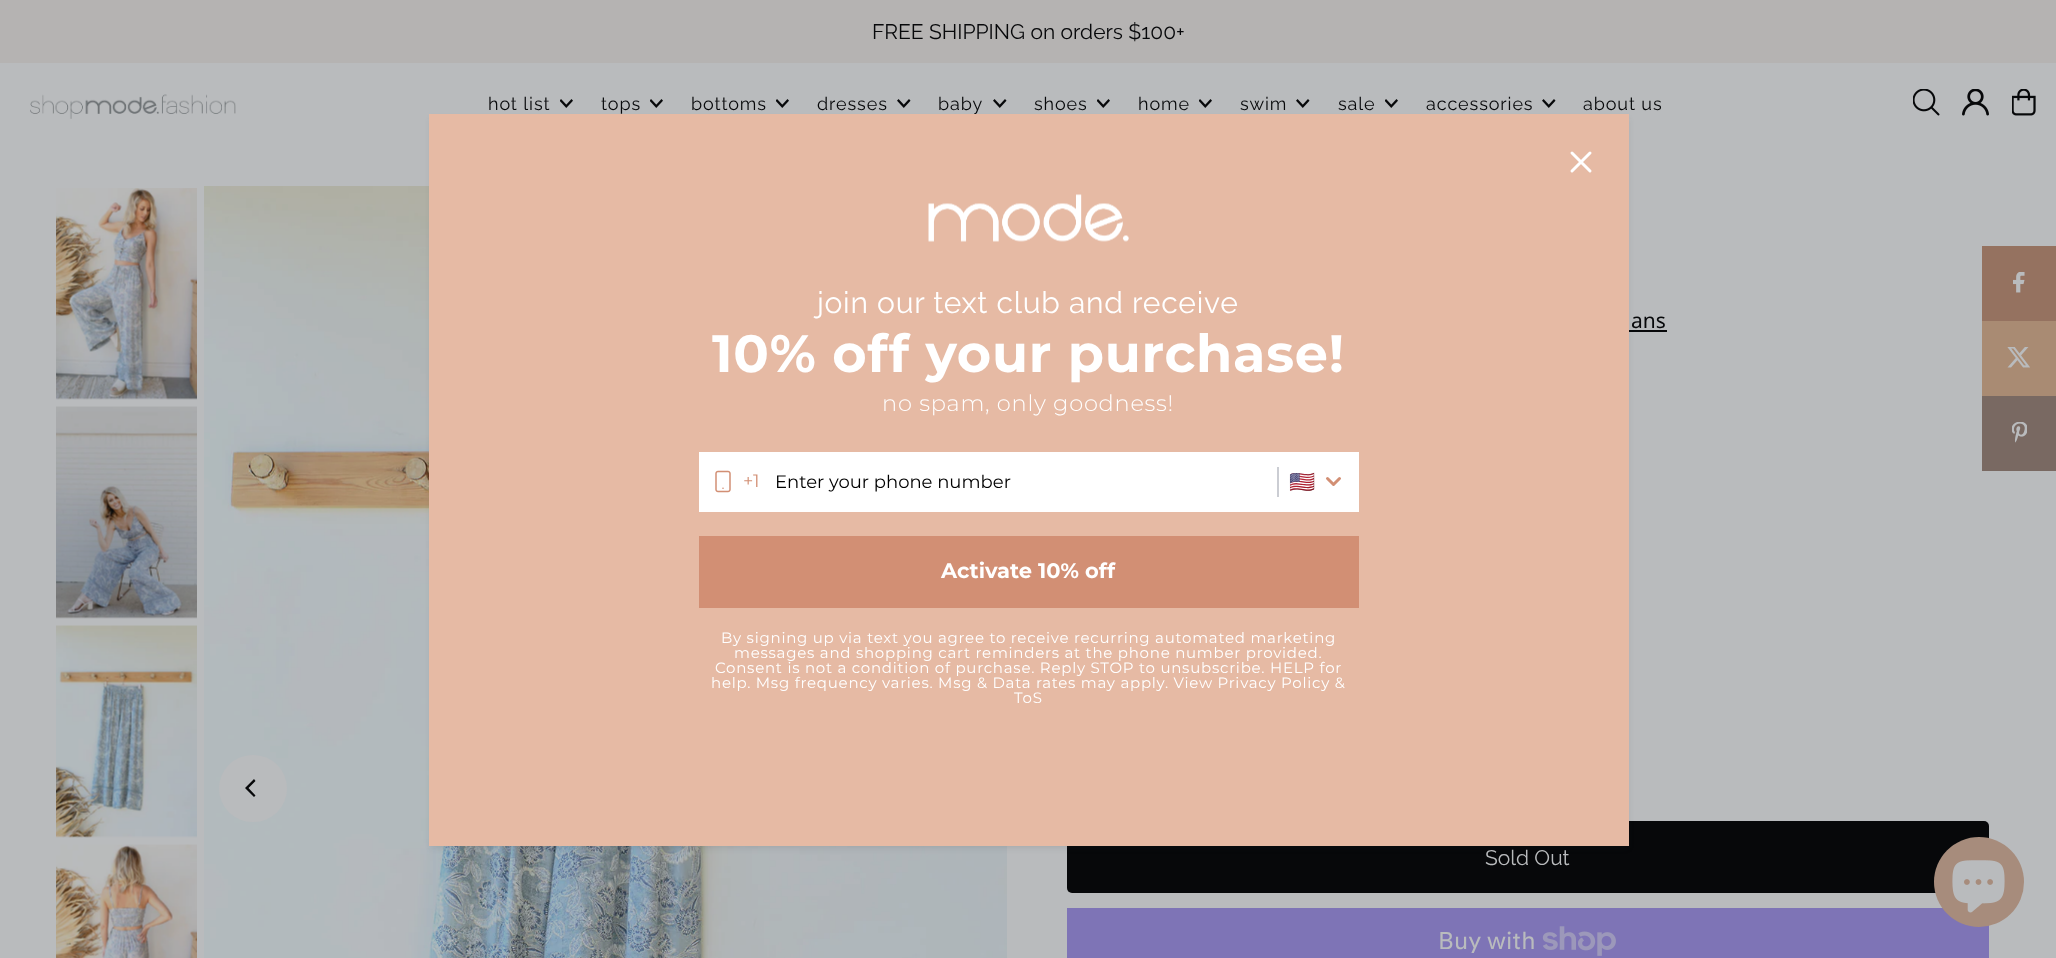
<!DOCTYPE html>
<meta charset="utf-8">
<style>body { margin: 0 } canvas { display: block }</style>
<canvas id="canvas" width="2056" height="958"></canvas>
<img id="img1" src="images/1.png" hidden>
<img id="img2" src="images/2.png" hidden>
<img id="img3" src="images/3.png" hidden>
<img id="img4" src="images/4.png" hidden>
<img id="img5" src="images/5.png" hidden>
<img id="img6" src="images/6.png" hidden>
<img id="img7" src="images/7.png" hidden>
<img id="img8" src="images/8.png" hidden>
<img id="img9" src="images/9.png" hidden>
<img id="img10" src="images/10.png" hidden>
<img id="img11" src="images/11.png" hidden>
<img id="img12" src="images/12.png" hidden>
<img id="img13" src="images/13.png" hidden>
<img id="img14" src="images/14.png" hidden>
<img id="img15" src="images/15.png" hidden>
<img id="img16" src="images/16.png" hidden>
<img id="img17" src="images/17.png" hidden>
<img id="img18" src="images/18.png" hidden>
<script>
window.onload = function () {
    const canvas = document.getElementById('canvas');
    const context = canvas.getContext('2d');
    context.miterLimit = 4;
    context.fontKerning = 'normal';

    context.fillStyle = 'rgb(185, 187, 189)';
    context.fillRect(0, 0, 2056, 958);
    context.fillStyle = 'rgb(181, 179, 178)';
    context.fillRect(0, 0, 2056, 63);
    context.drawImage(document.getElementById('img1'), 30, 94, 206, 25);
    context.drawImage(document.getElementById('img2'), 560, 99, 13, 9);
    context.drawImage(document.getElementById('img2'), 650, 99, 13, 9);
    context.drawImage(document.getElementById('img2'), 776, 99, 13, 9);
    context.drawImage(document.getElementById('img3'), 897, 99, 14, 9);
    context.drawImage(document.getElementById('img3'), 993, 99, 14, 9);
    context.drawImage(document.getElementById('img2'), 1097, 99, 13, 9);
    context.drawImage(document.getElementById('img2'), 1199, 99, 13, 9);
    context.drawImage(document.getElementById('img3'), 1296, 99, 14, 9);
    context.drawImage(document.getElementById('img2'), 1385, 99, 13, 9);
    context.drawImage(document.getElementById('img3'), 1542, 99, 14, 9);
    context.drawImage(document.getElementById('img4'), 1913, 89, 27, 27);
    context.drawImage(document.getElementById('img5'), 1962, 89, 27, 27);
    context.drawImage(document.getElementById('img6'), 2012, 89, 24, 27);
    context.drawImage(document.getElementById('img7'), 56, 188, 141, 212);
    context.drawImage(document.getElementById('img8'), 56, 406, 141, 213);
    context.drawImage(document.getElementById('img9'), 56, 625, 141, 213);
    context.drawImage(document.getElementById('img10'), 56, 844, 141, 114);
    context.drawImage(document.getElementById('img11'), 204, 186, 803, 772);
    context.fillStyle = 'rgb(185, 187, 189)';
    context.beginPath();
    context.roundRect(219, 755, 68, 67, 33.5);
    context.fill();
    context.fillStyle = 'rgb(7, 8, 10)';
    context.beginPath();
    context.moveTo(245, 788);
    context.lineTo(254, 797);
    context.lineTo(255.5, 795.5);
    context.lineTo(248.5, 788);
    context.lineTo(255.5, 781);
    context.lineTo(254, 779);
    context.closePath();
    context.fill();
    context.fillRect(1629, 330, 38, 2);
    context.beginPath();
    context.roundRect(1067, 821, 922, 72, 5);
    context.fill();
    context.fillStyle = 'rgb(126, 116, 182)';
    context.fillRect(1067, 908, 922, 50);
    context.drawImage(document.getElementById('img12'), 1542, 926, 74, 30);
    context.fillStyle = 'rgb(149, 114, 96)';
    context.fillRect(1982, 246, 74, 75);
    context.drawImage(document.getElementById('img13'), 2013, 272, 12, 21);
    context.fillStyle = 'rgb(169, 139, 115)';
    context.fillRect(1982, 321, 74, 75);
    context.drawImage(document.getElementById('img14'), 2007, 347, 23, 21);
    context.fillStyle = 'rgb(121, 105, 98)';
    context.fillRect(1982, 396, 74, 75);
    context.drawImage(document.getElementById('img15'), 2012, 422, 15, 21);
    context.fillStyle = 'rgba(30, 38, 51, 0.1)';
    context.filter = 'blur(3px)';
    context.beginPath();
    context.rect(431, 119, 1197, 729);
    context.fill();
    context.filter = 'none';
    context.fillStyle = 'rgb(230, 186, 164)';
    context.fillRect(429, 114, 1200, 732);
    context.beginPath();
    context.moveTo(1590, 153);
    context.lineTo(1572, 171);
    context.moveTo(1572, 153);
    context.lineTo(1590, 171);
    context.strokeStyle = 'rgb(255, 255, 255)';
    context.lineWidth = 3;
    context.lineCap = 'round';
    context.lineJoin = 'round';
    context.stroke();
    context.drawImage(document.getElementById('img16'), 928, 194, 201, 48);
    context.fillStyle = 'rgb(255, 255, 255)';
    context.fillRect(699, 452, 660, 60);
    context.drawImage(document.getElementById('img17'), 715, 470, 16, 23);
    context.fillStyle = 'rgb(203, 205, 211)';
    context.fillRect(1277, 467, 2, 30);
    context.beginPath();
    context.moveTo(1327.5, 478.5);
    context.lineTo(1333.5, 484.5);
    context.lineTo(1339.5, 478.5);
    context.strokeStyle = 'rgb(210, 143, 116)';
    context.stroke();
    context.fillStyle = 'rgb(210, 143, 116)';
    context.fillRect(699, 536, 660, 72);
    context.fillStyle = 'rgb(167, 140, 124)';
    context.beginPath();
    context.arc(1979, 882, 45, 0, 2 * Math.PI);
    context.fill();
    context.drawImage(document.getElementById('img18'), 1952, 860, 53, 53);
    context.font = '21px Raleway';
    context.fillStyle = 'rgb(7, 8, 10)';
    context.fillText('FREE SHIPPING on orders $100+', 872, 39);
    context.letterSpacing = '0.9px';
    context.font = '18px Raleway';
    context.fillText('hot list', 488, 110);
    context.fillText('tops', 601, 110);
    context.fillText('bottoms', 691, 110);
    context.fillText('dresses', 817, 110);
    context.fillText('baby', 938, 110);
    context.fillText('shoes', 1034, 110);
    context.fillText('home', 1138, 110);
    context.fillText('swim', 1240, 110);
    context.fillText('sale', 1338, 110);
    context.fillText('accessories', 1426, 110);
    context.fillText('about us', 1583, 110);
    context.letterSpacing = '0px';
    context.font = '21px Noto Sans';
    context.fillText('ans', 1631, 328);
    context.font = '21px Raleway';
    context.fillStyle = 'rgb(185, 187, 189)';
    context.fillText('Sold Out', 1485, 865);
    context.font = '24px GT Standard';
    context.fillText('Buy with', 1438, 949);
    context.letterSpacing = '0.75px';
    context.font = '30px Raleway';
    context.fillStyle = 'rgb(255, 255, 255)';
    context.fillText('join our text club and receive', 817, 313);
    context.font = 'bold 52.5px Montserrat';
    context.fillText('10% off your purchase!', 712, 372);
    context.font = '300 22.5px Montserrat';
    context.fillText('no spam, only goodness!', 882, 411);
    context.letterSpacing = '0px';
    context.font = '18px Montserrat';
    context.fillStyle = 'rgb(210, 143, 116)';
    context.fillText('+1', 743, 487);
    context.fillStyle = 'rgb(0, 0, 0)';
    context.fillText('Enter your phone number', 775, 488);
    context.font = '21px Noto Color Emoji';
    context.fillStyle = 'rgb(210, 143, 116)';
    context.fillText('🇺🇸', 1289, 489);
    context.font = 'bold 21px Montserrat';
    context.fillStyle = 'rgb(255, 255, 255)';
    context.fillText('Activate 10% off', 941, 578);
    context.letterSpacing = '0.75px';
    context.font = '15px Montserrat';
    context.fillText('By signing up via text you agree to receive recurring automated marketing', 721, 643);
    context.fillText('messages and shopping cart reminders at the phone number provided.', 734, 658);
    context.fillText('Consent is not a condition of purchase. Reply STOP to unsubscribe. HELP for', 715, 673);
    context.fillText('help. Msg frequency varies. Msg & Data rates may apply. View Privacy Policy &', 711, 688);
    context.fillText('ToS', 1014, 703);
};
</script>
